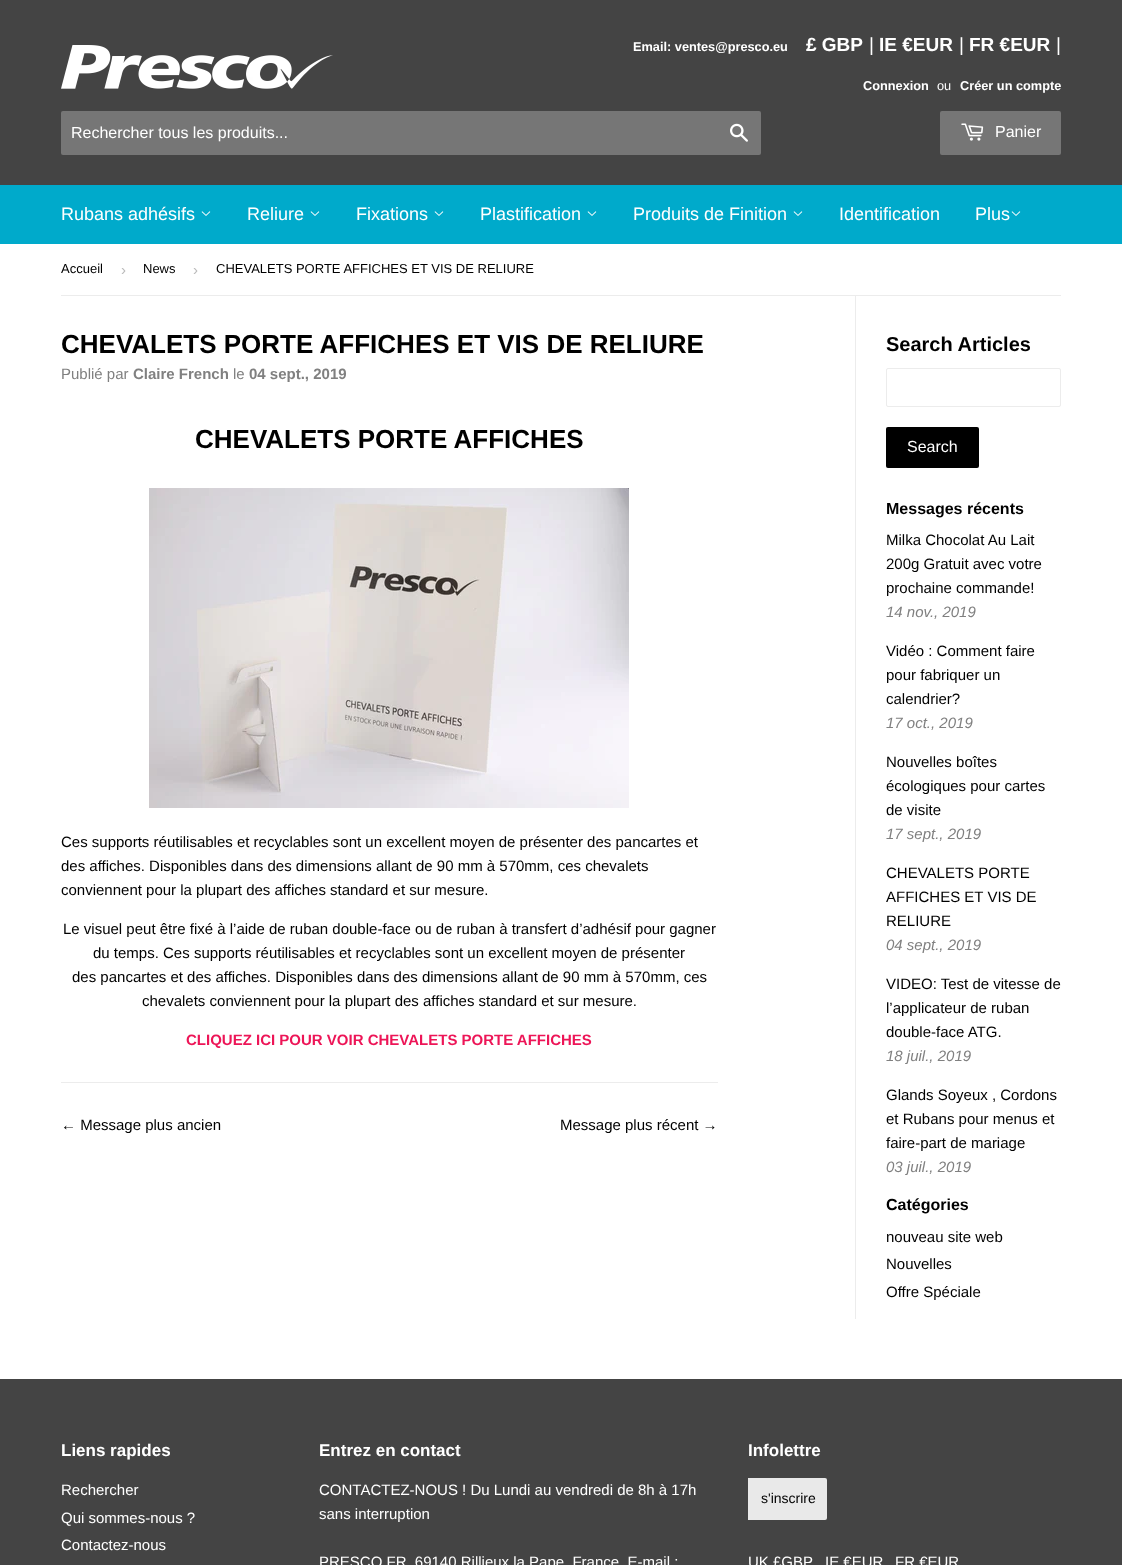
<!DOCTYPE html>
<meta charset="utf-8">
<style>body { margin: 0 } canvas { display: block }</style>
<canvas id="canvas" width="1122" height="1565"></canvas>
<img id="img1" src="images/1.png" hidden>
<img id="img2" src="images/2.png" hidden>
<img id="img3" src="images/3.png" hidden>
<img id="img4" src="images/4.png" hidden>
<img id="img5" src="images/5.png" hidden>
<script>
window.onload = function () {
    const canvas = document.getElementById('canvas');
    const context = canvas.getContext('2d');
    context.miterLimit = 4;
    context.fontKerning = 'normal';

    context.fillStyle = 'rgb(255, 255, 255)';
    context.fillRect(0, 0, 1122, 1565);
    context.fillStyle = 'rgb(68, 68, 68)';
    context.fillRect(0, 0, 1122, 185);
    context.fillStyle = 'rgb(118, 118, 118)';
    context.beginPath();
    context.roundRect(61, 111, 700, 44, 2);
    context.fill();
    context.drawImage(document.getElementById('img1'), 730, 123, 18, 19);
    context.beginPath();
    context.roundRect(940, 111, 121, 44, 2);
    context.fill();
    context.drawImage(document.getElementById('img2'), 961, 123, 23, 18);
    context.drawImage(document.getElementById('img3'), 61, 45, 272, 44);
    context.fillStyle = 'rgb(0, 170, 203)';
    context.fillRect(0, 185, 1122, 59);
    context.drawImage(document.getElementById('img4'), 201, 211, 10, 5);
    context.drawImage(document.getElementById('img4'), 310, 211, 10, 5);
    context.drawImage(document.getElementById('img4'), 434, 211, 10, 5);
    context.drawImage(document.getElementById('img4'), 587, 211, 10, 5);
    context.drawImage(document.getElementById('img4'), 793, 211, 10, 5);
    context.drawImage(document.getElementById('img4'), 1011, 211, 10, 5);
    context.fillStyle = 'rgb(236, 236, 236)';
    context.fillRect(61, 295, 1000, 1);
    context.drawImage(document.getElementById('img5'), 149, 488, 480, 320);
    context.fillRect(61, 1082, 657, 1);
    context.fillRect(855, 296, 1, 1023);
    context.beginPath();
    context.roundRect(886.5, 368.5, 174, 38, 1.5);
    context.strokeStyle = 'rgb(236, 236, 236)';
    context.stroke();
    context.fillStyle = 'rgb(0, 0, 0)';
    context.beginPath();
    context.roundRect(886, 427, 93, 41, 2);
    context.fill();
    context.fillStyle = 'rgb(68, 68, 68)';
    context.fillRect(0, 1379, 1122, 186);
    context.fillStyle = 'rgb(233, 233, 233)';
    context.beginPath();
    context.roundRect(748, 1478, 79, 42, [0, 2, 2, 0]);
    context.fill();
    context.font = 'bold 12.75px Liberation Sans';
    context.fillStyle = 'rgb(255, 255, 255)';
    context.fillText('Email: ventes@presco.eu', 633, 51);
    context.font = 'bold 19px Liberation Sans';
    context.fillText('£ GBP', 806, 51);
    context.font = '19px Liberation Sans';
    context.fillText('|', 869, 51);
    context.font = 'bold 19px Liberation Sans';
    context.fillText('IE €EUR', 879, 51);
    context.font = '19px Liberation Sans';
    context.fillText('|', 959, 51);
    context.font = 'bold 19px Liberation Sans';
    context.fillText('FR €EUR', 969, 51);
    context.font = '19px Liberation Sans';
    context.fillText('|', 1056, 51);
    context.font = 'bold 12.75px Liberation Sans';
    context.fillText('Connexion', 863, 90);
    context.font = '12.75px Liberation Sans';
    context.fillText('ou', 937, 90);
    context.font = 'bold 12.75px Liberation Sans';
    context.fillText('Créer un compte', 960, 90);
    context.font = '16px Liberation Sans';
    context.fillText('Rechercher tous les produits...', 71, 138);
    context.fillText('Panier', 995, 137);
    context.font = '18px Liberation Sans';
    context.fillText('Rubans adhésifs', 61, 220);
    context.fillText('Reliure', 247, 220);
    context.fillText('Fixations', 356, 220);
    context.fillText('Plastification', 480, 220);
    context.fillText('Produits de Finition', 633, 220);
    context.fillText('Identification', 839, 220);
    context.fillText('Plus', 975, 220);
    context.font = '13px Liberation Sans';
    context.fillStyle = 'rgb(0, 0, 0)';
    context.fillText('Accueil', 61, 273);
    context.font = '15px Liberation Sans';
    context.fillStyle = 'rgb(187, 187, 187)';
    context.fillText('›', 121, 275);
    context.font = '13px Liberation Sans';
    context.fillStyle = 'rgb(0, 0, 0)';
    context.fillText('News', 143, 273);
    context.font = '15px Liberation Sans';
    context.fillStyle = 'rgb(187, 187, 187)';
    context.fillText('›', 193, 275);
    context.font = '13px Liberation Sans';
    context.fillStyle = 'rgb(0, 0, 0)';
    context.fillText('CHEVALETS PORTE AFFICHES ET VIS DE RELIURE', 216, 273);
    context.font = 'bold 26px Liberation Sans';
    context.fillText('CHEVALETS PORTE AFFICHES ET VIS DE RELIURE', 61, 353);
    context.font = '15px Liberation Sans';
    context.fillStyle = 'rgb(128, 128, 128)';
    context.fillText('Publié par', 61, 379);
    context.font = 'bold 15px Liberation Sans';
    context.fillText('Claire French', 133, 379);
    context.font = '15px Liberation Sans';
    context.fillText('le', 233, 379);
    context.font = 'bold 15px Liberation Sans';
    context.fillText('04 sept., 2019', 249, 379);
    context.font = 'bold 26px Liberation Sans';
    context.fillStyle = 'rgb(0, 0, 0)';
    context.fillText('CHEVALETS PORTE AFFICHES', 195, 448);
    context.font = '15px Liberation Sans';
    context.fillText('Ces supports réutilisables et recyclables sont un excellent moyen de présenter des pancartes et', 61, 847);
    context.fillText('des affiches. Disponibles dans des dimensions allant de 90 mm à 570mm, ces chevalets', 61, 871);
    context.fillText('conviennent pour la plupart des affiches standard et sur mesure.', 61, 895);
    context.fillText('Le visuel peut être fixé à l’aide de ruban double-face ou de ruban à transfert d’adhésif pour gagner', 63, 934);
    context.fillText('du temps. Ces supports réutilisables et recyclables sont un excellent moyen de présenter', 93, 958);
    context.fillText('des pancartes et des affiches. Disponibles dans des dimensions allant de 90 mm à 570mm, ces', 72, 982);
    context.fillText('chevalets conviennent pour la plupart des affiches standard et sur mesure.', 142, 1006);
    context.font = 'bold 15px Liberation Sans';
    context.fillStyle = 'rgb(237, 21, 87)';
    context.fillText('CLIQUEZ ICI POUR VOIR CHEVALETS PORTE AFFICHES', 186, 1045);
    context.font = '15px Liberation Sans';
    context.fillStyle = 'rgb(0, 0, 0)';
    context.fillText('← Message plus ancien', 61, 1130);
    context.fillText('Message plus récent →', 560, 1130);
    context.font = 'bold 20px Liberation Sans';
    context.fillText('Search Articles', 886, 351);
    context.font = '16px Liberation Sans';
    context.fillStyle = 'rgb(255, 255, 255)';
    context.fillText('Search', 907, 452);
    context.font = 'bold 16px Liberation Sans';
    context.fillStyle = 'rgb(0, 0, 0)';
    context.fillText('Messages récents', 886, 514);
    context.font = '15px Liberation Sans';
    context.fillText('Milka Chocolat Au Lait', 886, 545);
    context.fillText('200g Gratuit avec votre', 886, 569);
    context.fillText('prochaine commande!', 886, 593);
    context.font = 'italic 15px Liberation Sans';
    context.fillStyle = 'rgb(128, 128, 128)';
    context.fillText('14 nov., 2019', 886, 617);
    context.font = '15px Liberation Sans';
    context.fillStyle = 'rgb(0, 0, 0)';
    context.fillText('Vidéo : Comment faire', 886, 656);
    context.fillText('pour fabriquer un', 886, 680);
    context.fillText('calendrier?', 886, 704);
    context.font = 'italic 15px Liberation Sans';
    context.fillStyle = 'rgb(128, 128, 128)';
    context.fillText('17 oct., 2019', 886, 728);
    context.font = '15px Liberation Sans';
    context.fillStyle = 'rgb(0, 0, 0)';
    context.fillText('Nouvelles boîtes', 886, 767);
    context.fillText('écologiques pour cartes', 886, 791);
    context.fillText('de visite', 886, 815);
    context.font = 'italic 15px Liberation Sans';
    context.fillStyle = 'rgb(128, 128, 128)';
    context.fillText('17 sept., 2019', 886, 839);
    context.font = '15px Liberation Sans';
    context.fillStyle = 'rgb(0, 0, 0)';
    context.fillText('CHEVALETS PORTE', 886, 878);
    context.fillText('AFFICHES ET VIS DE', 886, 902);
    context.fillText('RELIURE', 886, 926);
    context.font = 'italic 15px Liberation Sans';
    context.fillStyle = 'rgb(128, 128, 128)';
    context.fillText('04 sept., 2019', 886, 950);
    context.font = '15px Liberation Sans';
    context.fillStyle = 'rgb(0, 0, 0)';
    context.fillText('VIDEO: Test de vitesse de', 886, 989);
    context.fillText('l’applicateur de ruban', 886, 1013);
    context.fillText('double-face ATG.', 886, 1037);
    context.font = 'italic 15px Liberation Sans';
    context.fillStyle = 'rgb(128, 128, 128)';
    context.fillText('18 juil., 2019', 886, 1061);
    context.font = '15px Liberation Sans';
    context.fillStyle = 'rgb(0, 0, 0)';
    context.fillText('Glands Soyeux , Cordons', 886, 1100);
    context.fillText('et Rubans pour menus et', 886, 1124);
    context.fillText('faire-part de mariage', 886, 1148);
    context.font = 'italic 15px Liberation Sans';
    context.fillStyle = 'rgb(128, 128, 128)';
    context.fillText('03 juil., 2019', 886, 1172);
    context.font = 'bold 16px Liberation Sans';
    context.fillStyle = 'rgb(0, 0, 0)';
    context.fillText('Catégories', 886, 1210);
    context.font = '15px Liberation Sans';
    context.fillText('nouveau site web', 886, 1242);
    context.fillText('Nouvelles', 886, 1269);
    context.fillText('Offre Spéciale', 886, 1297);
    context.font = 'bold 17px Liberation Sans';
    context.fillStyle = 'rgb(255, 255, 255)';
    context.fillText('Liens rapides', 61, 1456);
    context.font = '15px Liberation Sans';
    context.fillText('Rechercher', 61, 1495);
    context.fillText('Qui sommes-nous ?', 61, 1523);
    context.fillText('Contactez-nous', 61, 1550);
    context.font = 'bold 17px Liberation Sans';
    context.fillText('Entrez en contact', 319, 1456);
    context.font = '15px Liberation Sans';
    context.fillText('CONTACTEZ-NOUS ! Du Lundi au vendredi de 8h à 17h', 319, 1495);
    context.fillText('sans interruption', 319, 1519);
    context.fillText('PRESCO FR, 69140 Rillieux la Pape, France. E-mail :', 319, 1567);
    context.font = 'bold 17px Liberation Sans';
    context.fillText('Infolettre', 748, 1456);
    context.font = '14px Liberation Sans';
    context.fillStyle = 'rgb(0, 0, 0)';
    context.fillText('s\'inscrire', 761, 1503);
    context.font = '15px Liberation Sans';
    context.fillStyle = 'rgb(255, 255, 255)';
    context.fillText('UK £GBP', 748, 1567);
    context.fillText('IE €EUR', 825, 1567);
    context.fillText('FR €EUR', 895, 1567);
};
</script>
